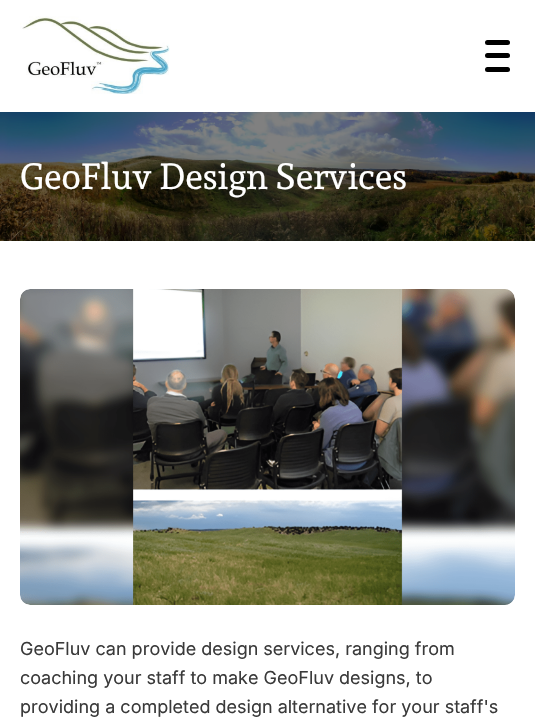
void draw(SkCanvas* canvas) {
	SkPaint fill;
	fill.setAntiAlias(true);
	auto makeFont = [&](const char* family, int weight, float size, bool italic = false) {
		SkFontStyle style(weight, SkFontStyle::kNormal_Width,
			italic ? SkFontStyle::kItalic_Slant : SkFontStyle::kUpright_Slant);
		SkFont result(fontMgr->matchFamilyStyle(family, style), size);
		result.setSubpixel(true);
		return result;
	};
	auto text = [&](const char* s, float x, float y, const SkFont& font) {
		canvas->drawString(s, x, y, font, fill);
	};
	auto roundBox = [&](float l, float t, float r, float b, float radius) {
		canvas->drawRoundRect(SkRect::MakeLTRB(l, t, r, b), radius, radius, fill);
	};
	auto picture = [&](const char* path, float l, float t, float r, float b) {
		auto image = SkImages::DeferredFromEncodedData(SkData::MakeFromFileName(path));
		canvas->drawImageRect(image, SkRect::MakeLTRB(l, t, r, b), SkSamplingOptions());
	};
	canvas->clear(0xFFFFFFFF);
	picture("image0.png", 20, 16, 170, 94);
	fill.setColor(0xFF000000);
	roundBox(485, 53, 510, 58, 2.5f);
	roundBox(485, 40, 510, 45, 2.5f);
	roundBox(485, 67, 510, 72, 2.5f);
	picture("image1.png", 0, 112, 535, 241);
	picture("image2.png", 20, 289, 515, 605);
	auto font1 = makeFont("Sura", 400, 36);
	fill.setColor(0xFFFFFFFF);
	text("GeoFluv Design Services", 20, 189, font1);
	auto font2 = makeFont("Inter", 400, 18);
	fill.setColor(0xFF3A3A3A);
	text("GeoFluv can provide design services, ranging from", 20, 655, font2);
	text("coaching your staff to make GeoFluv designs, to", 20, 684, font2);
	text("providing a completed design alternative for your staff's", 20, 713, font2);
}
